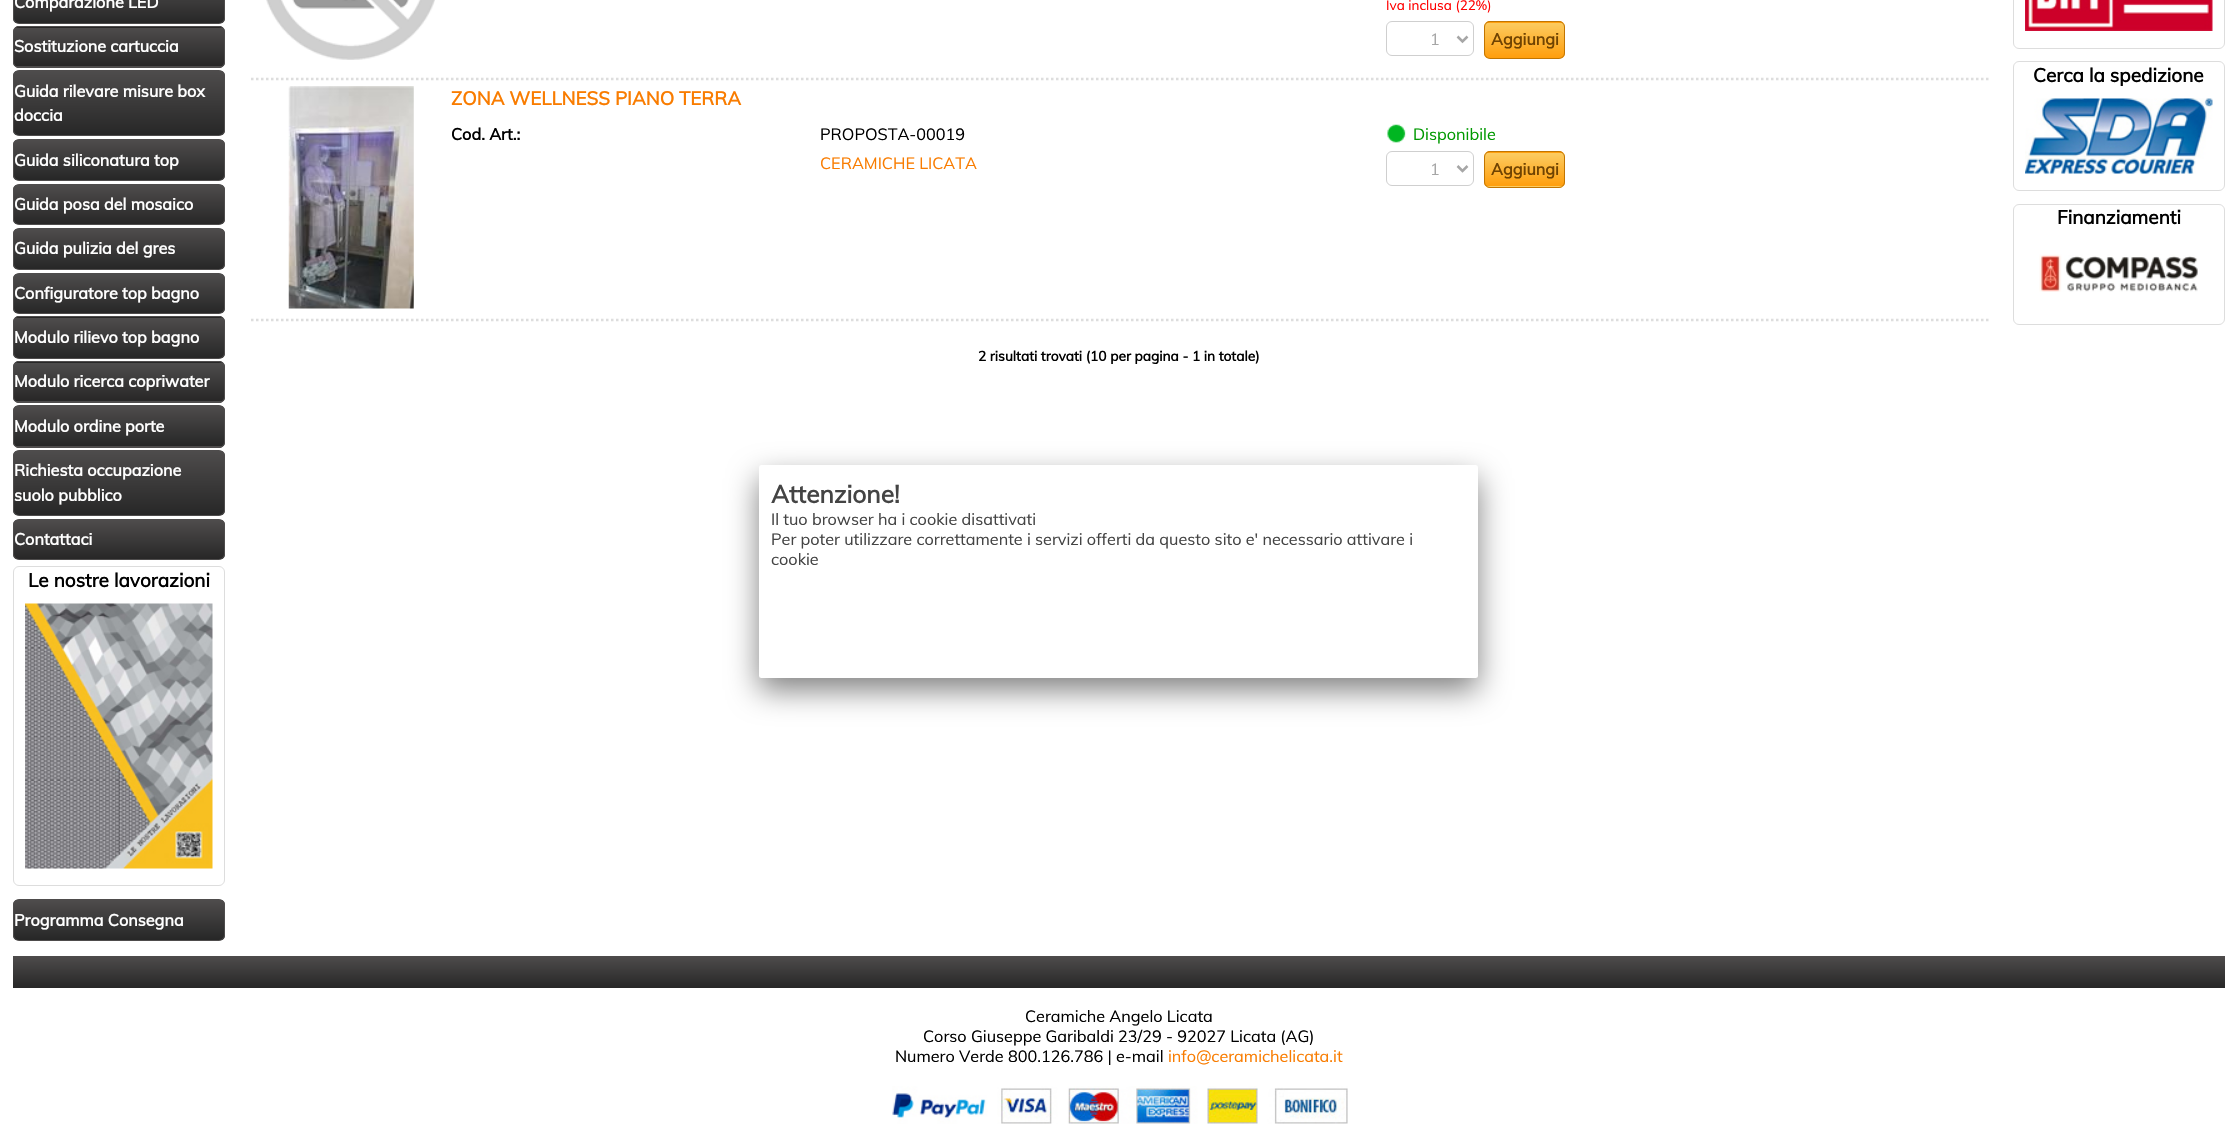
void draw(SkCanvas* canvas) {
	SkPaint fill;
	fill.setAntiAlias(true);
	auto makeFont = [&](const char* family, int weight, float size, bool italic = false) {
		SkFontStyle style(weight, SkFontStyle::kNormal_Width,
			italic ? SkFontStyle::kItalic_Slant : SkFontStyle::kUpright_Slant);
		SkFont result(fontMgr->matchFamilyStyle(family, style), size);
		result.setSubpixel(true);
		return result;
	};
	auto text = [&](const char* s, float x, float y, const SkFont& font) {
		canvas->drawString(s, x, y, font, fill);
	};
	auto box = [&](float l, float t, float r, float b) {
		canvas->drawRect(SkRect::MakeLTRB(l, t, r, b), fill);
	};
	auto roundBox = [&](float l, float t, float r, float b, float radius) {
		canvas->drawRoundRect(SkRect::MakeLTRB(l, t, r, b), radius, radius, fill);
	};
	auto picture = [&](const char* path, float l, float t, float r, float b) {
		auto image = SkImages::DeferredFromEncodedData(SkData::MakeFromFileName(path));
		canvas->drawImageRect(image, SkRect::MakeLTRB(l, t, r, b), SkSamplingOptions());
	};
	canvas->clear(0xFFFFFFFF);
	canvas->save();
	canvas->clipPath(SkPathBuilder().moveTo(19, -19).lineTo(219, -19).cubicTo(222.5f, -19, 225, -16.5f, 225, -13).lineTo(225, 18).cubicTo(225, 21.5f, 222.5f, 24, 219, 24).lineTo(19, 24).cubicTo(15.5f, 24, 13, 21.5f, 13, 18).lineTo(13, -13).cubicTo(13, -16.5f, 15.5f, -19, 19, -19).close().detach(), true);
	{
		const SkColor colors[] = {0xFF4E4C4C, 0xFF272727};
		const float stops[] = {0, 1};
		const SkPoint ends[] = {{119, -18}, {119, 23}};
		fill.setShader(SkGradientShader::MakeLinear(ends, colors, stops, 2, SkTileMode::kClamp));
		fill.setAlpha(255);
	}
	box(13, 0, 225, 23);
	canvas->restore();
	fill.setStyle(SkPaint::kStroke_Style);
	fill.setStrokeWidth(1);
	fill.setShader(nullptr);
	fill.setColor(0xFF4E4C4C);
	canvas->drawRoundRect(SkRect::MakeLTRB(13.5f, -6.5f, 224.5f, 23.5f), 5.5f, 5.5f, fill);
	canvas->save();
	canvas->clipPath(SkPathBuilder().moveTo(19, 26).lineTo(219, 26).cubicTo(222.5f, 26, 225, 28.5f, 225, 32).lineTo(225, 62).cubicTo(225, 65.5f, 222.5f, 68, 219, 68).lineTo(19, 68).cubicTo(15.5f, 68, 13, 65.5f, 13, 62).lineTo(13, 32).cubicTo(13, 28.5f, 15.5f, 26, 19, 26).close().detach(), true);
	fill.setStyle(SkPaint::kFill_Style);
	{
		const SkColor colors[] = {0xFF4E4C4C, 0xFF272727};
		const float stops[] = {0, 1};
		const SkPoint ends[] = {{119, -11}, {119, 28}};
		fill.setShader(SkGradientShader::MakeLinear(ends, colors, stops, 2, SkTileMode::kClamp));
		fill.setAlpha(255);
	}
	box(13, 26, 225, 28);
	{
		const SkColor colors[] = {0xFF4E4C4C, 0xFF272727};
		const float stops[] = {0, 1};
		const SkPoint ends[] = {{119, 27}, {119, 66}};
		fill.setShader(SkGradientShader::MakeLinear(ends, colors, stops, 2, SkTileMode::kClamp));
		fill.setAlpha(255);
	}
	box(13, 28, 225, 66);
	{
		const SkColor colors[] = {0xFF4E4C4C, 0xFF272727};
		const float stops[] = {0, 1};
		const SkPoint ends[] = {{119, 66}, {119, 105}};
		fill.setShader(SkGradientShader::MakeLinear(ends, colors, stops, 2, SkTileMode::kClamp));
		fill.setAlpha(255);
	}
	box(13, 66, 225, 68);
	canvas->restore();
	fill.setStyle(SkPaint::kStroke_Style);
	fill.setShader(nullptr);
	fill.setColor(0xFF4E4C4C);
	canvas->drawRoundRect(SkRect::MakeLTRB(13.5f, 26.5f, 224.5f, 67.5f), 5.5f, 5.5f, fill);
	canvas->save();
	canvas->clipPath(SkPathBuilder().moveTo(19, 70).lineTo(219, 70).cubicTo(222.5f, 70, 225, 72.5f, 225, 76).lineTo(225, 130).cubicTo(225, 133.5f, 222.5f, 136, 219, 136).lineTo(19, 136).cubicTo(15.5f, 136, 13, 133.5f, 13, 130).lineTo(13, 76).cubicTo(13, 72.5f, 15.5f, 70, 19, 70).close().detach(), true);
	fill.setStyle(SkPaint::kFill_Style);
	{
		const SkColor colors[] = {0xFF4E4C4C, 0xFF272727};
		const float stops[] = {0, 1};
		const SkPoint ends[] = {{119, 71}, {119, 135}};
		fill.setShader(SkGradientShader::MakeLinear(ends, colors, stops, 2, SkTileMode::kClamp));
		fill.setAlpha(255);
	}
	box(13, 71, 225, 135);
	canvas->restore();
	fill.setStyle(SkPaint::kStroke_Style);
	fill.setShader(nullptr);
	fill.setColor(0xFF4E4C4C);
	canvas->drawRoundRect(SkRect::MakeLTRB(13.5f, 70.5f, 224.5f, 135.5f), 5.5f, 5.5f, fill);
	canvas->save();
	canvas->clipPath(SkPathBuilder().moveTo(19, 139).lineTo(219, 139).cubicTo(222.5f, 139, 225, 141.5f, 225, 145).lineTo(225, 175).cubicTo(225, 178.5f, 222.5f, 181, 219, 181).lineTo(19, 181).cubicTo(15.5f, 181, 13, 178.5f, 13, 175).lineTo(13, 145).cubicTo(13, 141.5f, 15.5f, 139, 19, 139).close().detach(), true);
	fill.setStyle(SkPaint::kFill_Style);
	{
		const SkColor colors[] = {0xFF4E4C4C, 0xFF272727};
		const float stops[] = {0, 1};
		const SkPoint ends[] = {{119, 140}, {119, 180}};
		fill.setShader(SkGradientShader::MakeLinear(ends, colors, stops, 2, SkTileMode::kClamp));
		fill.setAlpha(255);
	}
	box(13, 140, 225, 180);
	canvas->restore();
	fill.setStyle(SkPaint::kStroke_Style);
	fill.setShader(nullptr);
	fill.setColor(0xFF4E4C4C);
	canvas->drawRoundRect(SkRect::MakeLTRB(13.5f, 139.5f, 224.5f, 180.5f), 5.5f, 5.5f, fill);
	canvas->save();
	canvas->clipPath(SkPathBuilder().moveTo(19, 184).lineTo(219, 184).cubicTo(222.5f, 184, 225, 186.5f, 225, 190).lineTo(225, 219).cubicTo(225, 222.5f, 222.5f, 225, 219, 225).lineTo(19, 225).cubicTo(15.5f, 225, 13, 222.5f, 13, 219).lineTo(13, 190).cubicTo(13, 186.5f, 15.5f, 184, 19, 184).close().detach(), true);
	fill.setStyle(SkPaint::kFill_Style);
	{
		const SkColor colors[] = {0xFF4E4C4C, 0xFF272727};
		const float stops[] = {0, 1};
		const SkPoint ends[] = {{119, 185}, {119, 224}};
		fill.setShader(SkGradientShader::MakeLinear(ends, colors, stops, 2, SkTileMode::kClamp));
		fill.setAlpha(255);
	}
	box(13, 185, 225, 224);
	canvas->restore();
	fill.setStyle(SkPaint::kStroke_Style);
	fill.setShader(nullptr);
	fill.setColor(0xFF4E4C4C);
	canvas->drawRoundRect(SkRect::MakeLTRB(13.5f, 184.5f, 224.5f, 224.5f), 5.5f, 5.5f, fill);
	canvas->save();
	canvas->clipPath(SkPathBuilder().moveTo(19, 228).lineTo(219, 228).cubicTo(222.5f, 228, 225, 230.5f, 225, 234).lineTo(225, 264).cubicTo(225, 267.5f, 222.5f, 270, 219, 270).lineTo(19, 270).cubicTo(15.5f, 270, 13, 267.5f, 13, 264).lineTo(13, 234).cubicTo(13, 230.5f, 15.5f, 228, 19, 228).close().detach(), true);
	fill.setStyle(SkPaint::kFill_Style);
	{
		const SkColor colors[] = {0xFF4E4C4C, 0xFF272727};
		const float stops[] = {0, 1};
		const SkPoint ends[] = {{119, 229}, {119, 269}};
		fill.setShader(SkGradientShader::MakeLinear(ends, colors, stops, 2, SkTileMode::kClamp));
		fill.setAlpha(255);
	}
	box(13, 229, 225, 269);
	canvas->restore();
	fill.setStyle(SkPaint::kStroke_Style);
	fill.setShader(nullptr);
	fill.setColor(0xFF4E4C4C);
	canvas->drawRoundRect(SkRect::MakeLTRB(13.5f, 228.5f, 224.5f, 269.5f), 5.5f, 5.5f, fill);
	canvas->save();
	canvas->clipPath(SkPathBuilder().moveTo(19, 273).lineTo(219, 273).cubicTo(222.5f, 273, 225, 275.5f, 225, 279).lineTo(225, 308).cubicTo(225, 311.5f, 222.5f, 314, 219, 314).lineTo(19, 314).cubicTo(15.5f, 314, 13, 311.5f, 13, 308).lineTo(13, 279).cubicTo(13, 275.5f, 15.5f, 273, 19, 273).close().detach(), true);
	fill.setStyle(SkPaint::kFill_Style);
	{
		const SkColor colors[] = {0xFF4E4C4C, 0xFF272727};
		const float stops[] = {0, 1};
		const SkPoint ends[] = {{119, 274}, {119, 313}};
		fill.setShader(SkGradientShader::MakeLinear(ends, colors, stops, 2, SkTileMode::kClamp));
		fill.setAlpha(255);
	}
	box(13, 274, 225, 313);
	canvas->restore();
	fill.setStyle(SkPaint::kStroke_Style);
	fill.setShader(nullptr);
	fill.setColor(0xFF4E4C4C);
	canvas->drawRoundRect(SkRect::MakeLTRB(13.5f, 273.5f, 224.5f, 313.5f), 5.5f, 5.5f, fill);
	canvas->save();
	canvas->clipPath(SkPathBuilder().moveTo(19, 316).lineTo(219, 316).cubicTo(222.5f, 316, 225, 318.5f, 225, 322).lineTo(225, 353).cubicTo(225, 356.5f, 222.5f, 359, 219, 359).lineTo(19, 359).cubicTo(15.5f, 359, 13, 356.5f, 13, 353).lineTo(13, 322).cubicTo(13, 318.5f, 15.5f, 316, 19, 316).close().detach(), true);
	fill.setStyle(SkPaint::kFill_Style);
	{
		const SkColor colors[] = {0xFF4E4C4C, 0xFF272727};
		const float stops[] = {0, 1};
		const SkPoint ends[] = {{119, 278}, {119, 318}};
		fill.setShader(SkGradientShader::MakeLinear(ends, colors, stops, 2, SkTileMode::kClamp));
		fill.setAlpha(255);
	}
	box(13, 316, 225, 318);
	{
		const SkColor colors[] = {0xFF4E4C4C, 0xFF272727};
		const float stops[] = {0, 1};
		const SkPoint ends[] = {{119, 318}, {119, 358}};
		fill.setShader(SkGradientShader::MakeLinear(ends, colors, stops, 2, SkTileMode::kClamp));
		fill.setAlpha(255);
	}
	box(13, 318, 225, 358);
	canvas->restore();
	fill.setStyle(SkPaint::kStroke_Style);
	fill.setShader(nullptr);
	fill.setColor(0xFF4E4C4C);
	canvas->drawRoundRect(SkRect::MakeLTRB(13.5f, 316.5f, 224.5f, 358.5f), 5.5f, 5.5f, fill);
	canvas->save();
	canvas->clipPath(SkPathBuilder().moveTo(19, 361).lineTo(219, 361).cubicTo(222.5f, 361, 225, 363.5f, 225, 367).lineTo(225, 397).cubicTo(225, 400.5f, 222.5f, 403, 219, 403).lineTo(19, 403).cubicTo(15.5f, 403, 13, 400.5f, 13, 397).lineTo(13, 367).cubicTo(13, 363.5f, 15.5f, 361, 19, 361).close().detach(), true);
	fill.setStyle(SkPaint::kFill_Style);
	{
		const SkColor colors[] = {0xFF4E4C4C, 0xFF272727};
		const float stops[] = {0, 1};
		const SkPoint ends[] = {{119, 324}, {119, 363}};
		fill.setShader(SkGradientShader::MakeLinear(ends, colors, stops, 2, SkTileMode::kClamp));
		fill.setAlpha(255);
	}
	box(13, 361, 225, 363);
	{
		const SkColor colors[] = {0xFF4E4C4C, 0xFF272727};
		const float stops[] = {0, 1};
		const SkPoint ends[] = {{119, 363}, {119, 401}};
		fill.setShader(SkGradientShader::MakeLinear(ends, colors, stops, 2, SkTileMode::kClamp));
		fill.setAlpha(255);
	}
	box(13, 363, 225, 401);
	{
		const SkColor colors[] = {0xFF4E4C4C, 0xFF272727};
		const float stops[] = {0, 1};
		const SkPoint ends[] = {{119, 401}, {119, 440}};
		fill.setShader(SkGradientShader::MakeLinear(ends, colors, stops, 2, SkTileMode::kClamp));
		fill.setAlpha(255);
	}
	box(13, 401, 225, 403);
	canvas->restore();
	fill.setStyle(SkPaint::kStroke_Style);
	fill.setShader(nullptr);
	fill.setColor(0xFF4E4C4C);
	canvas->drawRoundRect(SkRect::MakeLTRB(13.5f, 361.5f, 224.5f, 402.5f), 5.5f, 5.5f, fill);
	canvas->save();
	canvas->clipPath(SkPathBuilder().moveTo(19, 405).lineTo(219, 405).cubicTo(222.5f, 405, 225, 407.5f, 225, 411).lineTo(225, 442).cubicTo(225, 445.5f, 222.5f, 448, 219, 448).lineTo(19, 448).cubicTo(15.5f, 448, 13, 445.5f, 13, 442).lineTo(13, 411).cubicTo(13, 407.5f, 15.5f, 405, 19, 405).close().detach(), true);
	fill.setStyle(SkPaint::kFill_Style);
	{
		const SkColor colors[] = {0xFF4E4C4C, 0xFF272727};
		const float stops[] = {0, 1};
		const SkPoint ends[] = {{119, 406}, {119, 446}};
		fill.setShader(SkGradientShader::MakeLinear(ends, colors, stops, 2, SkTileMode::kClamp));
		fill.setAlpha(255);
	}
	box(13, 406, 225, 446);
	{
		const SkColor colors[] = {0xFF4E4C4C, 0xFF272727};
		const float stops[] = {0, 1};
		const SkPoint ends[] = {{119, 446}, {119, 486}};
		fill.setShader(SkGradientShader::MakeLinear(ends, colors, stops, 2, SkTileMode::kClamp));
		fill.setAlpha(255);
	}
	box(13, 446, 225, 448);
	canvas->restore();
	fill.setStyle(SkPaint::kStroke_Style);
	fill.setShader(nullptr);
	fill.setColor(0xFF4E4C4C);
	canvas->drawRoundRect(SkRect::MakeLTRB(13.5f, 405.5f, 224.5f, 447.5f), 5.5f, 5.5f, fill);
	canvas->save();
	canvas->clipPath(SkPathBuilder().moveTo(19, 450).lineTo(219, 450).cubicTo(222.5f, 450, 225, 452.5f, 225, 456).lineTo(225, 510).cubicTo(225, 513.5f, 222.5f, 516, 219, 516).lineTo(19, 516).cubicTo(15.5f, 516, 13, 513.5f, 13, 510).lineTo(13, 456).cubicTo(13, 452.5f, 15.5f, 450, 19, 450).close().detach(), true);
	fill.setStyle(SkPaint::kFill_Style);
	{
		const SkColor colors[] = {0xFF4E4C4C, 0xFF272727};
		const float stops[] = {0, 1};
		const SkPoint ends[] = {{119, 451}, {119, 515}};
		fill.setShader(SkGradientShader::MakeLinear(ends, colors, stops, 2, SkTileMode::kClamp));
		fill.setAlpha(255);
	}
	box(13, 451, 225, 515);
	canvas->restore();
	fill.setStyle(SkPaint::kStroke_Style);
	fill.setShader(nullptr);
	fill.setColor(0xFF4E4C4C);
	canvas->drawRoundRect(SkRect::MakeLTRB(13.5f, 450.5f, 224.5f, 515.5f), 5.5f, 5.5f, fill);
	canvas->save();
	canvas->clipPath(SkPathBuilder().moveTo(19, 519).lineTo(219, 519).cubicTo(222.5f, 519, 225, 521.5f, 225, 525).lineTo(225, 554).cubicTo(225, 557.5f, 222.5f, 560, 219, 560).lineTo(19, 560).cubicTo(15.5f, 560, 13, 557.5f, 13, 554).lineTo(13, 525).cubicTo(13, 521.5f, 15.5f, 519, 19, 519).close().detach(), true);
	fill.setStyle(SkPaint::kFill_Style);
	{
		const SkColor colors[] = {0xFF4E4C4C, 0xFF272727};
		const float stops[] = {0, 1};
		const SkPoint ends[] = {{119, 520}, {119, 559}};
		fill.setShader(SkGradientShader::MakeLinear(ends, colors, stops, 2, SkTileMode::kClamp));
		fill.setAlpha(255);
	}
	box(13, 520, 225, 559);
	canvas->restore();
	fill.setStyle(SkPaint::kStroke_Style);
	fill.setShader(nullptr);
	fill.setColor(0xFF4E4C4C);
	canvas->drawRoundRect(SkRect::MakeLTRB(13.5f, 519.5f, 224.5f, 559.5f), 5.5f, 5.5f, fill);
	fill.setColor(0xFFDDDDDD);
	canvas->drawRoundRect(SkRect::MakeLTRB(13.5f, 566.5f, 224.5f, 885.5f), 5.5f, 5.5f, fill);
	picture("image0.png", 25, 603, 213, 869);
	canvas->save();
	canvas->clipPath(SkPathBuilder().moveTo(19, 899).lineTo(219, 899).cubicTo(222.5f, 899, 225, 901.5f, 225, 905).lineTo(225, 935).cubicTo(225, 938.5f, 222.5f, 941, 219, 941).lineTo(19, 941).cubicTo(15.5f, 941, 13, 938.5f, 13, 935).lineTo(13, 905).cubicTo(13, 901.5f, 15.5f, 899, 19, 899).close().detach(), true);
	fill.setStyle(SkPaint::kFill_Style);
	{
		const SkColor colors[] = {0xFF4E4C4C, 0xFF272727};
		const float stops[] = {0, 1};
		const SkPoint ends[] = {{119, 900}, {119, 940}};
		fill.setShader(SkGradientShader::MakeLinear(ends, colors, stops, 2, SkTileMode::kClamp));
		fill.setAlpha(255);
	}
	box(13, 900, 225, 940);
	canvas->restore();
	fill.setStyle(SkPaint::kStroke_Style);
	fill.setShader(nullptr);
	fill.setColor(0xFF4E4C4C);
	canvas->drawRoundRect(SkRect::MakeLTRB(13.5f, 899.5f, 224.5f, 940.5f), 5.5f, 5.5f, fill);
	fill.setStrokeWidth(2.5f);
	fill.setColor(0xFFDDDDDD);
	fill.setPathEffect(SkDashPathEffect::Make({{2.5f, 2.5f}}, 0));
	canvas->drawPath(SkPathBuilder().moveTo(251, 79).lineTo(1989, 79).detach(), fill);
	fill.setPathEffect(nullptr);
	picture("image1.png", 266, 0, 435, 60);
	fill.setStrokeWidth(1);
	fill.setColor(0xFFCFCFCF);
	canvas->drawRoundRect(SkRect::MakeLTRB(1386.5f, 21.5f, 1473.5f, 55.5f), 5.5f, 5.5f, fill);
	fill.setStrokeWidth(2.5f);
	fill.setColor(0xFFA6A6A6);
	canvas->drawPath(SkPathBuilder().moveTo(1457.5f, 36.5f).lineTo(1462.5f, 41.5f).lineTo(1467.5f, 36.5f).detach(), fill);
	canvas->save();
	canvas->clipPath(SkPathBuilder().moveTo(1490, 21).lineTo(1559, 21).cubicTo(1562.5f, 21, 1565, 23.5f, 1565, 27).lineTo(1565, 53).cubicTo(1565, 56.5f, 1562.5f, 59, 1559, 59).lineTo(1490, 59).cubicTo(1486.5f, 59, 1484, 56.5f, 1484, 53).lineTo(1484, 27).cubicTo(1484, 23.5f, 1486.5f, 21, 1490, 21).close().detach(), true);
	fill.setStyle(SkPaint::kFill_Style);
	{
		const SkColor colors[] = {0xFFFCCC62, 0xFFFF9E0D};
		const float stops[] = {0, 1};
		const SkPoint ends[] = {{1524, -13}, {1524, 23}};
		fill.setShader(SkGradientShader::MakeLinear(ends, colors, stops, 2, SkTileMode::kClamp));
		fill.setAlpha(255);
	}
	box(1484, 21, 1565, 23);
	{
		const SkColor colors[] = {0xFFFCCC62, 0xFFFF9E0D};
		const float stops[] = {0, 1};
		const SkPoint ends[] = {{1524, 22}, {1524, 58}};
		fill.setShader(SkGradientShader::MakeLinear(ends, colors, stops, 2, SkTileMode::kClamp));
		fill.setAlpha(255);
	}
	box(1484, 23, 1565, 58);
	canvas->restore();
	fill.setStyle(SkPaint::kStroke_Style);
	fill.setStrokeWidth(1);
	fill.setShader(nullptr);
	fill.setColor(0xFFC27501);
	canvas->drawRoundRect(SkRect::MakeLTRB(1484.5f, 21.5f, 1564.5f, 58.5f), 5.5f, 5.5f, fill);
	fill.setStrokeWidth(2.5f);
	fill.setColor(0xFFDDDDDD);
	fill.setPathEffect(SkDashPathEffect::Make({{2.5f, 2.5f}}, 0));
	canvas->drawPath(SkPathBuilder().moveTo(251, 320).lineTo(1989, 320).detach(), fill);
	fill.setPathEffect(nullptr);
	picture("image2.png", 288, 86, 414, 309);
	picture("image3.png", 1387, 124, 1406, 143);
	fill.setStrokeWidth(1);
	fill.setColor(0xFFCFCFCF);
	canvas->drawRoundRect(SkRect::MakeLTRB(1386.5f, 151.5f, 1473.5f, 185.5f), 5.5f, 5.5f, fill);
	fill.setStrokeWidth(2.5f);
	fill.setColor(0xFFA6A6A6);
	canvas->drawPath(SkPathBuilder().moveTo(1457.5f, 166).lineTo(1462.5f, 171).lineTo(1467.5f, 166).detach(), fill);
	canvas->save();
	canvas->clipPath(SkPathBuilder().moveTo(1490, 151).lineTo(1559, 151).cubicTo(1562.5f, 151, 1565, 153.5f, 1565, 157).lineTo(1565, 182).cubicTo(1565, 185.5f, 1562.5f, 188, 1559, 188).lineTo(1490, 188).cubicTo(1486.5f, 188, 1484, 185.5f, 1484, 182).lineTo(1484, 157).cubicTo(1484, 153.5f, 1486.5f, 151, 1490, 151).close().detach(), true);
	fill.setStyle(SkPaint::kFill_Style);
	{
		const SkColor colors[] = {0xFFFCCC62, 0xFFFF9E0D};
		const float stops[] = {0, 1};
		const SkPoint ends[] = {{1524, 119}, {1524, 153}};
		fill.setShader(SkGradientShader::MakeLinear(ends, colors, stops, 2, SkTileMode::kClamp));
		fill.setAlpha(255);
	}
	box(1484, 151, 1565, 153);
	{
		const SkColor colors[] = {0xFFFCCC62, 0xFFFF9E0D};
		const float stops[] = {0, 1};
		const SkPoint ends[] = {{1524, 153}, {1524, 186}};
		fill.setShader(SkGradientShader::MakeLinear(ends, colors, stops, 2, SkTileMode::kClamp));
		fill.setAlpha(255);
	}
	box(1484, 153, 1565, 186);
	{
		const SkColor colors[] = {0xFFFCCC62, 0xFFFF9E0D};
		const float stops[] = {0, 1};
		const SkPoint ends[] = {{1524, 186}, {1524, 220}};
		fill.setShader(SkGradientShader::MakeLinear(ends, colors, stops, 2, SkTileMode::kClamp));
		fill.setAlpha(255);
	}
	box(1484, 186, 1565, 188);
	canvas->restore();
	fill.setStyle(SkPaint::kStroke_Style);
	fill.setStrokeWidth(1);
	fill.setShader(nullptr);
	fill.setColor(0xFFC27501);
	canvas->drawRoundRect(SkRect::MakeLTRB(1484.5f, 151.5f, 1564.5f, 187.5f), 5.5f, 5.5f, fill);
	fill.setColor(0xFFDDDDDD);
	canvas->drawRoundRect(SkRect::MakeLTRB(2013.5f, -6.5f, 2224.5f, 48.5f), 5.5f, 5.5f, fill);
	picture("image4.png", 2025, 0, 2213, 31);
	canvas->drawRoundRect(SkRect::MakeLTRB(2013.5f, 61.5f, 2224.5f, 190.5f), 5.5f, 5.5f, fill);
	picture("image5.png", 2025, 98, 2213, 174);
	canvas->drawRoundRect(SkRect::MakeLTRB(2013.5f, 204.5f, 2224.5f, 324.5f), 5.5f, 5.5f, fill);
	picture("image6.png", 2039, 254, 2198, 292);
	fill.setStyle(SkPaint::kFill_Style);
	fill.setColor(0x80000000);
	fill.setMaskFilter(SkMaskFilter::MakeBlur(kNormal_SkBlurStyle, 15.5f));
	canvas->drawRoundRect(SkRect::MakeLTRB(759, 478, 1478, 690), 2.5f, 2.5f, fill);
	fill.setMaskFilter(nullptr);
	fill.setColor(0xFFFFFFFF);
	roundBox(759, 465, 1478, 678, 2.5f);
	{
		const SkColor colors[] = {0xFF4E4C4C, 0xFF272727};
		const float stops[] = {0, 1};
		const SkPoint ends[] = {{1119, 956}, {1119, 988}};
		fill.setShader(SkGradientShader::MakeLinear(ends, colors, stops, 2, SkTileMode::kClamp));
		fill.setAlpha(255);
	}
	box(13, 956, 2225, 988);
	picture("image7.png", 892, 1086, 1348, 1124);
	auto font1 = makeFont("Muli", 700, 16.25f);
	fill.setShader(nullptr);
	fill.setColor(0xFFFFFFFF);
	text("Comparazione LED", 14, 8, font1);
	text("Sostituzione cartuccia", 14, 52, font1);
	text("Guida rilevare misure box", 14, 97, font1);
	text("doccia", 14, 121, font1);
	text("Guida siliconatura top", 14, 166, font1);
	text("Guida posa del mosaico", 14, 210, font1);
	text("Guida pulizia del gres", 14, 254, font1);
	text("Configuratore top bagno", 14, 299, font1);
	text("Modulo rilievo top bagno", 14, 343, font1);
	text("Modulo ricerca copriwater", 14, 387, font1);
	text("Modulo ordine porte", 14, 432, font1);
	text("Richiesta occupazione", 14, 476, font1);
	text("suolo pubblico", 14, 501, font1);
	text("Contattaci", 14, 545, font1);
	auto font2 = makeFont("Muli", 700, 19);
	fill.setColor(0xFF000000);
	text("Le nostre lavorazioni", 28, 587, font2);
	fill.setColor(0xFFFFFFFF);
	text("Programma Consegna", 14, 926, font1);
	auto font3 = makeFont("Muli", 400, 13.5f);
	fill.setColor(0xFFFF0000);
	text("Iva inclusa (22%)", 1386, 10, font3);
	auto font4 = makeFont("Muli", 400, 16.25f);
	fill.setColor(0xFFA6A6A6);
	text("1", 1430, 45, font4);
	fill.setColor(0xFF704301);
	text("Aggiungi", 1491, 45, font1);
	auto font5 = makeFont("Muli", 700, 18.75f);
	fill.setColor(0xFFF97C00);
	text("ZONA WELLNESS PIANO TERRA", 451, 105, font5);
	fill.setColor(0xFF000000);
	text("Cod. Art.:", 451, 140, font1);
	text("PROPOSTA-00019", 820, 140, font4);
	fill.setColor(0xFFF97C00);
	text("CERAMICHE LICATA", 820, 169, font4);
	fill.setColor(0xFF009900);
	text("Disponibile", 1413, 140, font4);
	fill.setColor(0xFFA6A6A6);
	text("1", 1430, 175, font4);
	fill.setColor(0xFF704301);
	text("Aggiungi", 1491, 175, font1);
	auto font6 = makeFont("Muli", 700, 13.75f);
	fill.setColor(0xFF000000);
	text("2 risultati trovati (10 per pagina - 1 in totale)", 978, 361, font6);
	text("Cerca la spedizione", 2033, 82, font2);
	text("Finanziamenti", 2057, 224, font2);
	auto font7 = makeFont("Muli", 700, 24.5f);
	fill.setColor(0xFF444444);
	text("Attenzione!", 771, 503, font7);
	text("Il tuo browser ha i cookie disattivati", 771, 525, font4);
	text("Per poter utilizzare correttamente i servizi offerti da questo sito e' necessario attivare i", 771, 545, font4);
	text("cookie", 771, 565, font4);
	fill.setColor(0xFF000000);
	text("Ceramiche Angelo Licata", 1025, 1022, font4);
	text("Corso Giuseppe Garibaldi 23/29 - 92027 Licata (AG)", 923, 1042, font4);
	text("Numero Verde 800.126.786 | e-mail", 895, 1062, font4);
	fill.setColor(0xFFF97C00);
	text("info@ceramichelicata.it", 1168, 1062, font4);
}
